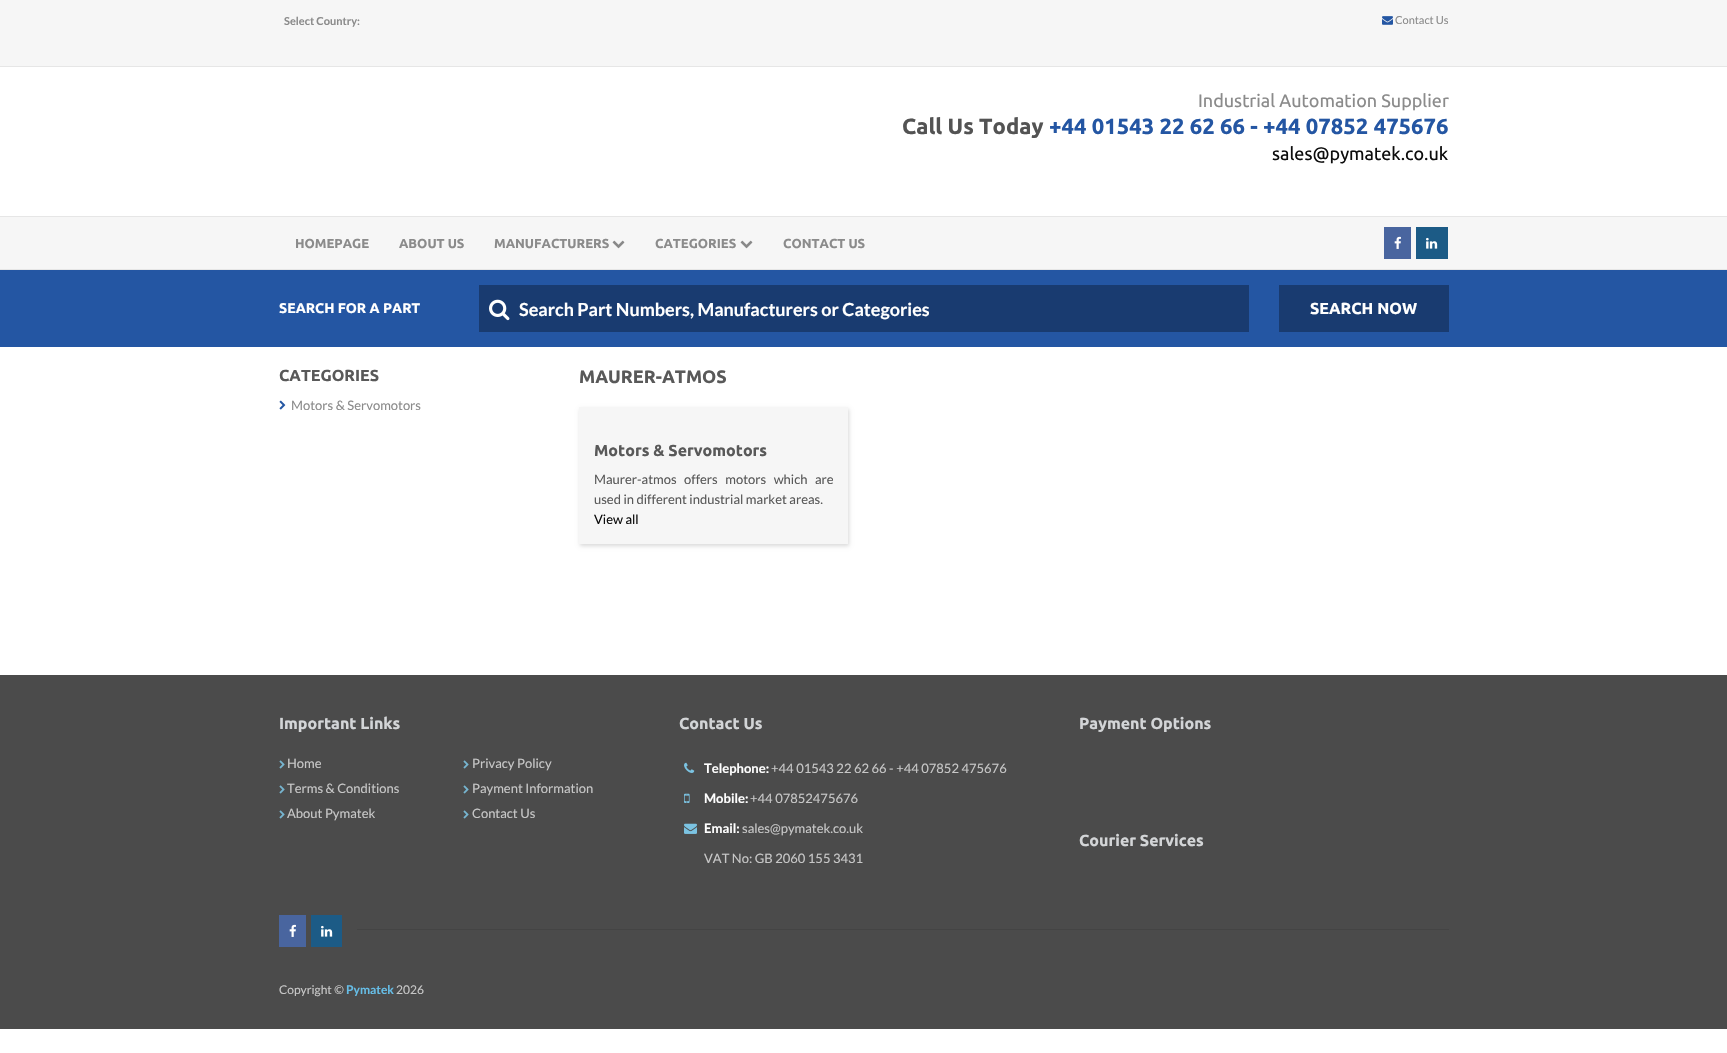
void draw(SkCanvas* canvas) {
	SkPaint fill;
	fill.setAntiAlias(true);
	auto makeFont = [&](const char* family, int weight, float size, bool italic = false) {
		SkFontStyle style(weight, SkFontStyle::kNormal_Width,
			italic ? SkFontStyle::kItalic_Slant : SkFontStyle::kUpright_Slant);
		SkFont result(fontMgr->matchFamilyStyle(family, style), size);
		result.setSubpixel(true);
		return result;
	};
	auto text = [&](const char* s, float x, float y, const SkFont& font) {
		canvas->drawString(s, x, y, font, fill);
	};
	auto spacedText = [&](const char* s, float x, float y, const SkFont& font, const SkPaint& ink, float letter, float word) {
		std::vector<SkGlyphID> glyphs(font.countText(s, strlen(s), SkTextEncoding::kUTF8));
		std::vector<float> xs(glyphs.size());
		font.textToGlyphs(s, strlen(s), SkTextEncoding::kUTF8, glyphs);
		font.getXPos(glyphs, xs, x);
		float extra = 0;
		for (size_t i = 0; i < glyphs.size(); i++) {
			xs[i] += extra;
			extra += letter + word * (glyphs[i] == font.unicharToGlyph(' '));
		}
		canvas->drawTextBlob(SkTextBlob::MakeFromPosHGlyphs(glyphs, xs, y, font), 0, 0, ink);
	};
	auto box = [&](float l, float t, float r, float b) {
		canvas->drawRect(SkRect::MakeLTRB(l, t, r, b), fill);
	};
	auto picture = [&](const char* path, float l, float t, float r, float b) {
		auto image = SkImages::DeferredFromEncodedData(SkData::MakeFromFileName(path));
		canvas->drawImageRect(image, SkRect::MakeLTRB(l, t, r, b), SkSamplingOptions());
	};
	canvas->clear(0xFFFFFFFF);
	fill.setColor(0xFFF6F6F6);
	box(0, 0, 1727, 66);
	fill.setColor(0xFFE6E6E6);
	box(0, 66, 1727, 67);
	picture("image0.png", 1382, 16, 1393, 25);
	fill.setColor(0xFFF6F6F6);
	box(0, 217, 1727, 269);
	fill.setColor(0xFFE6E6E6);
	box(0, 216, 1727, 217);
	box(0, 269, 1727, 270);
	picture("image1.png", 612, 240, 625, 249);
	picture("image1.png", 740, 240, 753, 249);
	fill.setColor(0xFF49659F);
	box(1384, 227, 1411, 259);
	picture("image2.png", 1394, 236, 1401, 249);
	fill.setColor(0xFF1C5B86);
	box(1416, 227, 1448, 259);
	picture("image3.png", 1426, 237, 1438, 249);
	fill.setColor(0xFF2456A3);
	box(0, 270, 1727, 347);
	fill.setColor(0xFF193B70);
	box(479, 285, 1249, 332);
	picture("image4.png", 489, 299, 510, 321);
	box(1279, 285, 1449, 332);
	picture("image5.png", 279, 400, 286, 410);
	fill.setColor(0x26000000);
	fill.setMaskFilter(SkMaskFilter::MakeBlur(kNormal_SkBlurStyle, 2));
	canvas->drawRect(SkRect::MakeLTRB(580, 409, 849, 546), fill);
	fill.setMaskFilter(nullptr);
	fill.setColor(0xFFF6F6F6);
	box(579, 407, 848, 544);
	fill.setColor(0xFF4B4B4B);
	box(0, 675, 1727, 1029);
	picture("image6.png", 279, 760, 285, 769);
	picture("image6.png", 463, 760, 469, 769);
	picture("image6.png", 279, 785, 285, 794);
	picture("image6.png", 463, 785, 469, 794);
	picture("image6.png", 279, 810, 285, 819);
	picture("image6.png", 463, 810, 469, 819);
	picture("image7.png", 684, 762, 695, 773);
	picture("image8.png", 684, 793, 690, 803);
	picture("image9.png", 684, 823, 697, 834);
	fill.setColor(0xFF444444);
	box(357, 929, 1449, 930);
	fill.setColor(0xFF49659F);
	box(279, 915, 306, 947);
	picture("image2.png", 289, 924, 296, 937);
	fill.setColor(0xFF1C5B86);
	box(311, 915, 342, 947);
	picture("image3.png", 321, 925, 333, 937);
	auto font1 = makeFont("Lato", 700, 11);
	fill.setColor(0xFF8B8B8B);
	text("Select Country:", 284, 25, font1);
	auto font2 = makeFont("Lato", 400, 11);
	text("Contact Us", 1395, 24, font2);
	auto font3 = makeFont("Ubuntu", 400, 18);
	text("Industrial Automation Supplier", 1198, 107, font3);
	auto font4 = makeFont("Ubuntu", 700, 22);
	fill.setColor(0xFF535353);
	text("Call Us Today", 902, 134, font4);
	fill.setColor(0xFF2456A3);
	text("+44 01543 22 62 66 - +44 07852 475676", 1049, 134, font4);
	fill.setColor(0xFF0D0D0D);
	text("sales@pymatek.co.uk", 1272, 160, font3);
	auto font5 = makeFont("Ubuntu", 700, 13);
	fill.setColor(0xFF8B8B8B);
	text("HOMEPAGE", 295, 248, font5);
	text("ABOUT US", 399, 248, font5);
	text("MANUFACTURERS", 494, 248, font5);
	text("CATEGORIES", 655, 248, font5);
	text("CONTACT US", 783, 248, font5);
	auto font6 = makeFont("Ubuntu", 700, 14);
	fill.setColor(0xFFFFFFFF);
	text("SEARCH FOR A PART", 279, 313, font6);
	auto font7 = makeFont("Lato", 700, 18);
	text("Search Part Numbers, Manufacturers or Categories", 519, 316, font7);
	auto font8 = makeFont("Ubuntu", 700, 16);
	text("SEARCH NOW", 1310, 314, font8);
	fill.setColor(0xFF595959);
	text("CATEGORIES", 279, 381, font8);
	auto font9 = makeFont("Lato", 400, 13);
	fill.setColor(0xFF8B8B8B);
	text("Motors & Servomotors", 291, 410, font9);
	auto font10 = makeFont("Ubuntu", 700, 18);
	fill.setColor(0xFF595959);
	text("MAURER-ATMOS", 579, 383, font10);
	text("Motors & Servomotors", 594, 456, font8);
	spacedText("Maurer-atmos offers motors which are", 594, 484, font9, fill, 0, 5);
	text("used in different industrial market areas.", 594, 504, font9);
	fill.setColor(0xFF0D0D0D);
	text("View all", 594, 524, font9);
	fill.setColor(0xFFD3D5D7);
	text("Important Links", 279, 729, font8);
	fill.setColor(0xFFC7C7C7);
	text("Home", 287, 768, font9);
	text("Privacy Policy", 472, 768, font9);
	text("Terms & Conditions", 287, 793, font9);
	text("Payment Information", 472, 793, font9);
	text("About Pymatek", 287, 818, font9);
	text("Contact Us", 472, 818, font9);
	fill.setColor(0xFFD3D5D7);
	text("Contact Us", 679, 729, font8);
	auto font11 = makeFont("Lato", 700, 13);
	fill.setColor(0xFFFFFFFF);
	text("Telephone:", 704, 773, font11);
	fill.setColor(0xFFC7C7C7);
	text("+44 01543 22 62 66 - +44 07852 475676", 771, 773, font9);
	fill.setColor(0xFFFFFFFF);
	text("Mobile:", 704, 803, font11);
	fill.setColor(0xFFC7C7C7);
	text("+44 07852475676", 750, 803, font9);
	fill.setColor(0xFFFFFFFF);
	text("Email:", 704, 833, font11);
	fill.setColor(0xFFC7C7C7);
	text("sales@pymatek.co.uk", 742, 833, font9);
	text("VAT No: GB 2060 155 3431", 704, 863, font9);
	fill.setColor(0xFFD3D5D7);
	text("Payment Options", 1079, 729, font8);
	text("Courier Services", 1079, 846, font8);
	auto font12 = makeFont("Lato", 400, 12);
	fill.setColor(0xFFC7C7C7);
	text("Copyright ©", 279, 994, font12);
	auto font13 = makeFont("Lato", 700, 12);
	fill.setColor(0xFF66BDE6);
	text("Pymatek", 346, 994, font13);
	fill.setColor(0xFFC7C7C7);
	text("2026", 396, 994, font12);
}
